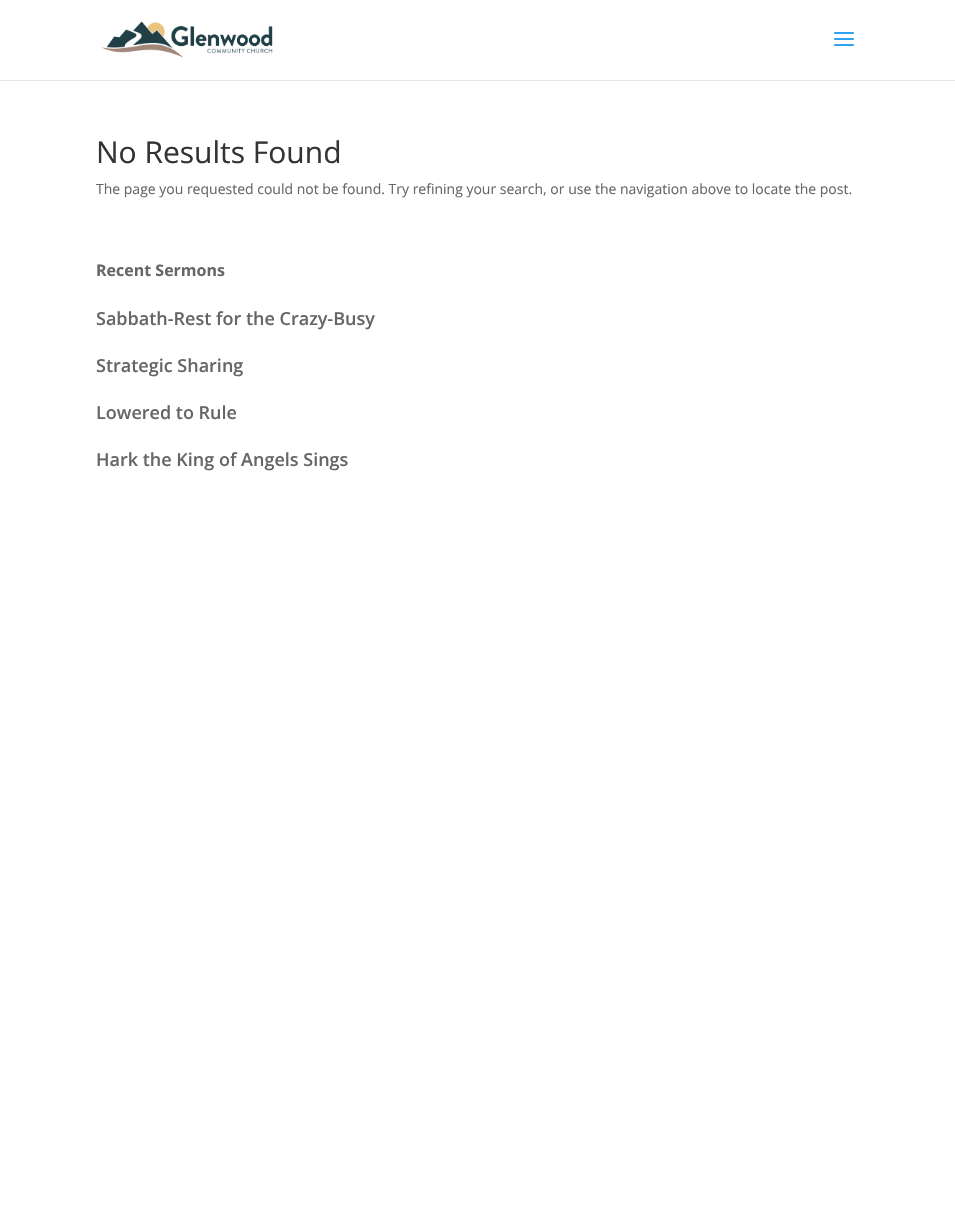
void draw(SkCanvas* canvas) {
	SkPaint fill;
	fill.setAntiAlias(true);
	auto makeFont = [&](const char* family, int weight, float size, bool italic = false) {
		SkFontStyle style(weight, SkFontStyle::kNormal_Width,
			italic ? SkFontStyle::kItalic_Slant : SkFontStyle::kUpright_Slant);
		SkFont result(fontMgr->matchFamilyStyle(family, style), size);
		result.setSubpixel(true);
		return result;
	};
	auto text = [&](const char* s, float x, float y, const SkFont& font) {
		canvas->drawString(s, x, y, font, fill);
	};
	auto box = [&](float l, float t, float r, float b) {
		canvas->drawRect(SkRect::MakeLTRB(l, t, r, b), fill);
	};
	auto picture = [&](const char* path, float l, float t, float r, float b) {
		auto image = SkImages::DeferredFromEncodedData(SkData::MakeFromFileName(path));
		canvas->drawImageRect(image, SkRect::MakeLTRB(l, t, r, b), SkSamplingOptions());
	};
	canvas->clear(0xFFFFFFFF);
	fill.setColor(0xFFE6E6E6);
	box(0, 80, 955, 81);
	picture("image0.png", 101, 21, 273, 58);
	picture("image1.png", 834, 32, 854, 46);
	auto font1 = makeFont("Open Sans", 400, 30);
	fill.setColor(0xFF333333);
	text("No Results Found", 96, 163, font1);
	auto font2 = makeFont("Open Sans", 400, 14);
	fill.setColor(0xFF666666);
	text("The page you requested could not be found. Try refining your search, or use the navigation above to locate the post.", 96, 194, font2);
	auto font3 = makeFont("Open Sans", 700, 16);
	text("Recent Sermons", 96, 276, font3);
	auto font4 = makeFont("Open Sans", 600, 18);
	text("Sabbath-Rest for the Crazy-Busy", 96, 325, font4);
	text("Strategic Sharing", 96, 372, font4);
	text("Lowered to Rule", 96, 419, font4);
	text("Hark the King of Angels Sings", 96, 466, font4);
}
